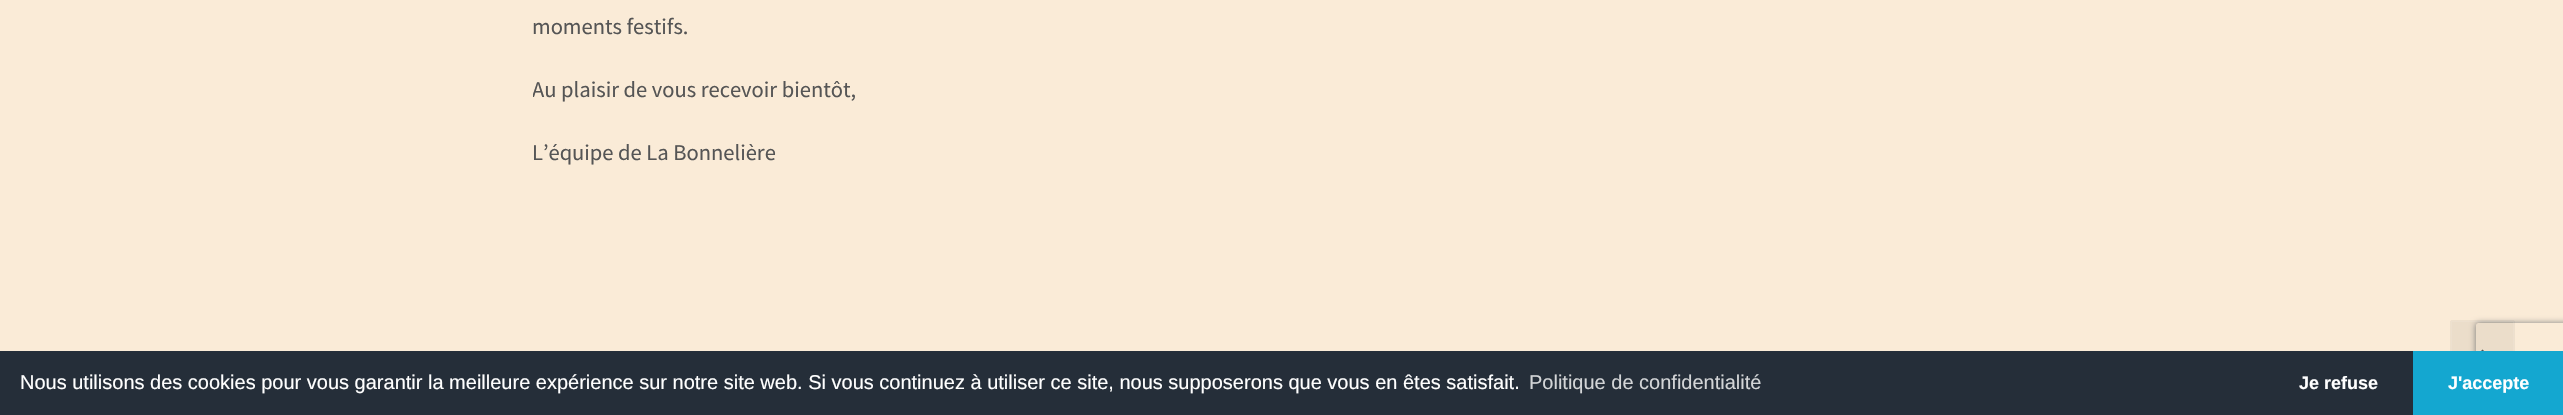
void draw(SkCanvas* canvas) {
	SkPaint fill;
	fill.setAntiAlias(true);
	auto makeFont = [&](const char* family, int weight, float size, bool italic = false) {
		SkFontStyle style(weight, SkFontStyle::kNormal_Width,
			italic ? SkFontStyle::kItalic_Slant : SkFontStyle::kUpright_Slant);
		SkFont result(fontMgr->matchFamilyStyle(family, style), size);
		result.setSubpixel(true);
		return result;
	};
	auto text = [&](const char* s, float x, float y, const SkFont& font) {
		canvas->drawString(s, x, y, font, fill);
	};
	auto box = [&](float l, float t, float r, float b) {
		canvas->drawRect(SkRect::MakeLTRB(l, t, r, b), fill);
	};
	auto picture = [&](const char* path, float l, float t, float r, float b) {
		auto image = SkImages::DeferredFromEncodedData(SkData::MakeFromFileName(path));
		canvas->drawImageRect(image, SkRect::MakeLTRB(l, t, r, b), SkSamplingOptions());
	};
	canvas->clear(0xFFFAEBD7);
	canvas->save();
	canvas->clipPath(SkPathBuilder(SkPathFillType::kEvenOdd).moveTo(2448, 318).lineTo(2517, 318).lineTo(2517, 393).lineTo(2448, 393).close().moveTo(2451, 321).lineTo(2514, 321).lineTo(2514, 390).lineTo(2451, 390).close().detach(), true);
	fill.setColor(0x47000000);
	fill.setMaskFilter(SkMaskFilter::MakeBlur(kNormal_SkBlurStyle, 0.5f));
	canvas->drawRect(SkRect::MakeLTRB(2451, 321, 2514, 390), fill);
	fill.setMaskFilter(nullptr);
	canvas->restore();
	canvas->save();
	canvas->clipPath(SkPathBuilder(SkPathFillType::kEvenOdd).moveTo(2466, 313).lineTo(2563, 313).lineTo(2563, 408).lineTo(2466, 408).close().moveTo(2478.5f, 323).lineTo(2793.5f, 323).cubicTo(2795, 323, 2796, 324, 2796, 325.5f).lineTo(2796, 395.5f).cubicTo(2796, 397, 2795, 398, 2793.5f, 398).lineTo(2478.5f, 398).cubicTo(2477, 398, 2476, 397, 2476, 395.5f).lineTo(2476, 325.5f).cubicTo(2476, 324, 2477, 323, 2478.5f, 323).close().detach(), true);
	fill.setColor(0xFF808080);
	fill.setMaskFilter(SkMaskFilter::MakeBlur(kNormal_SkBlurStyle, 3));
	canvas->drawRoundRect(SkRect::MakeLTRB(2476, 323, 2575, 398), 2.5f, 2.5f, fill);
	fill.setMaskFilter(nullptr);
	canvas->restore();
	fill.setColor(0x0F000000);
	box(2451, 321, 2514, 351);
	fill.setStyle(SkPaint::kStroke_Style);
	fill.setStrokeWidth(1);
	fill.setColor(0x1AFFFFFF);
	canvas->drawRect(SkRect::MakeLTRB(2451.5f, 321.5f, 2513.5f, 389.5f), fill);
	picture("image0.png", 2481, 349, 2484, 351);
	fill.setStyle(SkPaint::kFill_Style);
	fill.setColor(0xFF252E39);
	box(0, 351, 2413, 415);
	fill.setColor(0xFF14A7D0);
	box(2413, 351, 2563, 415);
	auto font1 = makeFont("Source Sans Pro", 400, 22.5f);
	fill.setColor(0xFF555555);
	text("moments festifs.", 532, 34, font1);
	canvas->save();
	canvas->clipRect(SkRect::MakeLTRB(533, 0, 2033, 259));
	text("Au plaisir de vous recevoir bientôt,", 532, 97, font1);
	canvas->restore();
	text("L’équipe de La Bonnelière", 532, 160, font1);
	auto font2 = makeFont("Liberation Sans", 400, 20);
	fill.setColor(0xFFFFFFFF);
	text("Nous utilisons des cookies pour vous garantir la meilleure expérience sur notre site web. Si vous continuez à utiliser ce site, nous supposerons que vous en êtes satisfait.", 20, 389, font2);
	fill.setColor(0xFFD3D5D7);
	text("Politique de confidentialité", 1529, 389, font2);
	auto font3 = makeFont("Liberation Sans", 700, 18);
	fill.setColor(0xFFFFFFFF);
	text("Je refuse", 2299, 389, font3);
	text("J'accepte", 2448, 389, font3);
}
